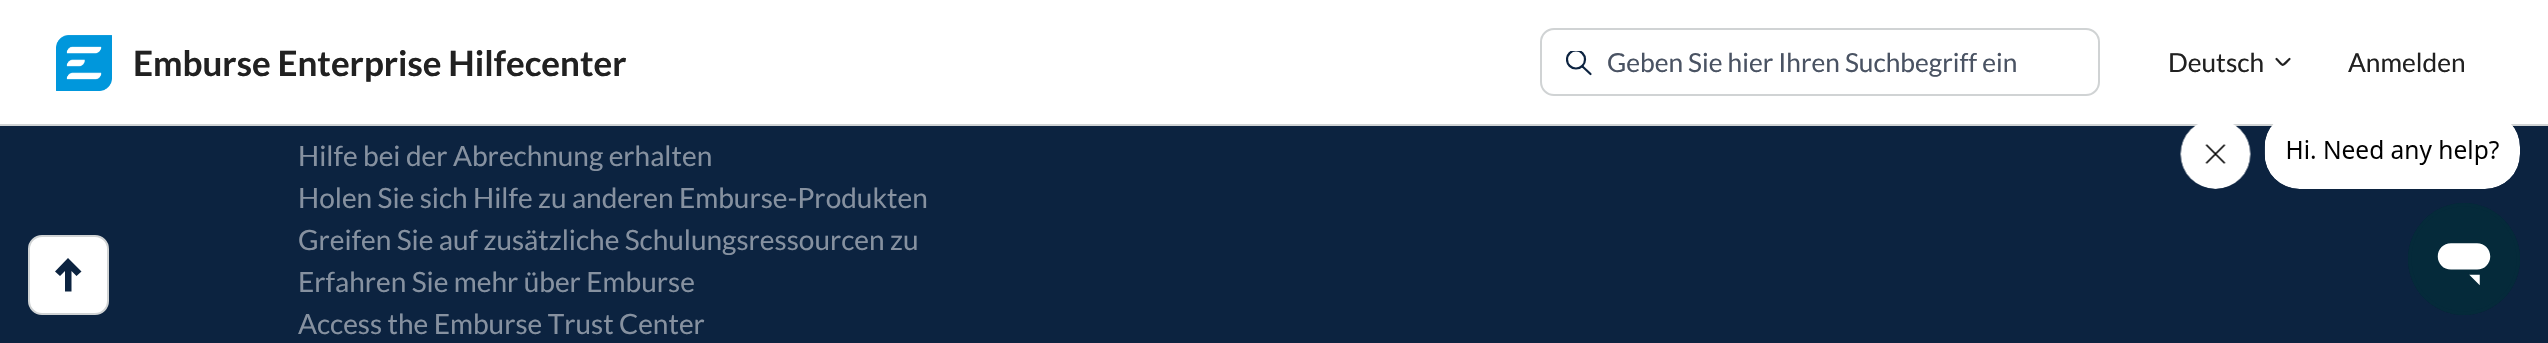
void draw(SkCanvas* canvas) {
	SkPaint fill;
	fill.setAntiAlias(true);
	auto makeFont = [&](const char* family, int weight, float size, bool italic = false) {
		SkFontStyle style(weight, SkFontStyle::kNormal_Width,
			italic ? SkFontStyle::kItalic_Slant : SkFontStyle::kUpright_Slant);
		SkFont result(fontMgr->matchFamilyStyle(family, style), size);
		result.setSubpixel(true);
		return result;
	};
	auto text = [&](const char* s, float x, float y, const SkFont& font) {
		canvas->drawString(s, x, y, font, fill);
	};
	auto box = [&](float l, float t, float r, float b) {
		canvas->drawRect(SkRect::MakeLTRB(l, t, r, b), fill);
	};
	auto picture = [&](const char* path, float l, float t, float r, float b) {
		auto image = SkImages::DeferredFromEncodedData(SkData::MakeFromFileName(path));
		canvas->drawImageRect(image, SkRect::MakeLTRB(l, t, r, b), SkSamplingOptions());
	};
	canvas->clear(0xFF0C2340);
	fill.setColor(0xFFFFFFFF);
	box(0, 0, 2548, 124);
	fill.setColor(0xFFD0D3D4);
	box(0, 124, 2548, 126);
	picture("image0.png", 56, 35, 112, 91);
	fill.setStyle(SkPaint::kStroke_Style);
	fill.setStrokeWidth(2);
	canvas->drawRoundRect(SkRect::MakeLTRB(1541, 29, 2099, 95), 13, 13, fill);
	canvas->save();
	canvas->clipRect(SkRect::MakeLTRB(1566, 51, 1593, 76));
	fill.setStrokeWidth(2.2f);
	fill.setColor(0xFF0C2340);
	canvas->drawCircle(1576, 59.5f, 9, fill);
	canvas->restore();
	fill.setStrokeCap(SkPaint::kRound_Cap);
	canvas->drawPath(SkPathBuilder().moveTo(1590.5f, 74).lineTo(1582.5f, 66.5f).detach(), fill);
	fill.setColor(0xFF212121);
	canvas->drawPath(SkPathBuilder().moveTo(2276.5f, 59).cubicTo(2284.5f, 67, 2281.5f, 66.5f, 2289.5f, 59).detach(), fill);
	fill.setStyle(SkPaint::kFill_Style);
	fill.setColor(0xFFFFFFFF);
	canvas->drawRoundRect(SkRect::MakeLTRB(29, 236, 108, 314), 13, 13, fill);
	fill.setStyle(SkPaint::kStroke_Style);
	fill.setStrokeWidth(2);
	fill.setStrokeCap(SkPaint::kButt_Cap);
	fill.setColor(0xFFD0D3D4);
	canvas->drawRoundRect(SkRect::MakeLTRB(29, 236, 108, 314), 13, 13, fill);
	fill.setStyle(SkPaint::kFill_Style);
	fill.setColor(0xFF0C2340);
	canvas->drawPath(SkPathBuilder().moveTo(55, 271.5f).lineTo(60, 276).lineTo(65, 271).lineTo(65, 291.5f).lineTo(71.5f, 291.5f).lineTo(71.5f, 271).lineTo(76.5f, 276).lineTo(81.5f, 271.5f).lineTo(68, 258).close().detach(), fill);
	picture("image1.png", 2180, 124, 2251, 189);
	picture("image2.png", 2264, 124, 2520, 189);
	picture("image3.png", 2408, 203, 2520, 315);
	auto font1 = makeFont("Lato", 700, 35);
	fill.setColor(0xFF212121);
	text("Emburse Enterprise Hilfecenter", 133, 76, font1);
	auto font2 = makeFont("Lato", 400, 26.25f);
	fill.setColor(0xFF4A5363);
	text("Geben Sie hier Ihren Suchbegriff ein", 1607, 72, font2);
	fill.setColor(0xFF212121);
	text("Deutsch", 2168, 72, font2);
	text("Anmelden", 2348, 72, font2);
	auto font3 = makeFont("Lato", 400, 28);
	fill.setColor(0xFF8691A0);
	text("Hilfe bei der Abrechnung erhalten", 298, 166, font3);
	text("Holen Sie sich Hilfe zu anderen Emburse-Produkten", 298, 208, font3);
	text("Greifen Sie auf zusätzliche Schulungsressourcen zu", 298, 250, font3);
	text("Erfahren Sie mehr über Emburse", 298, 292, font3);
	text("Access the Emburse Trust Center", 298, 334, font3);
}
